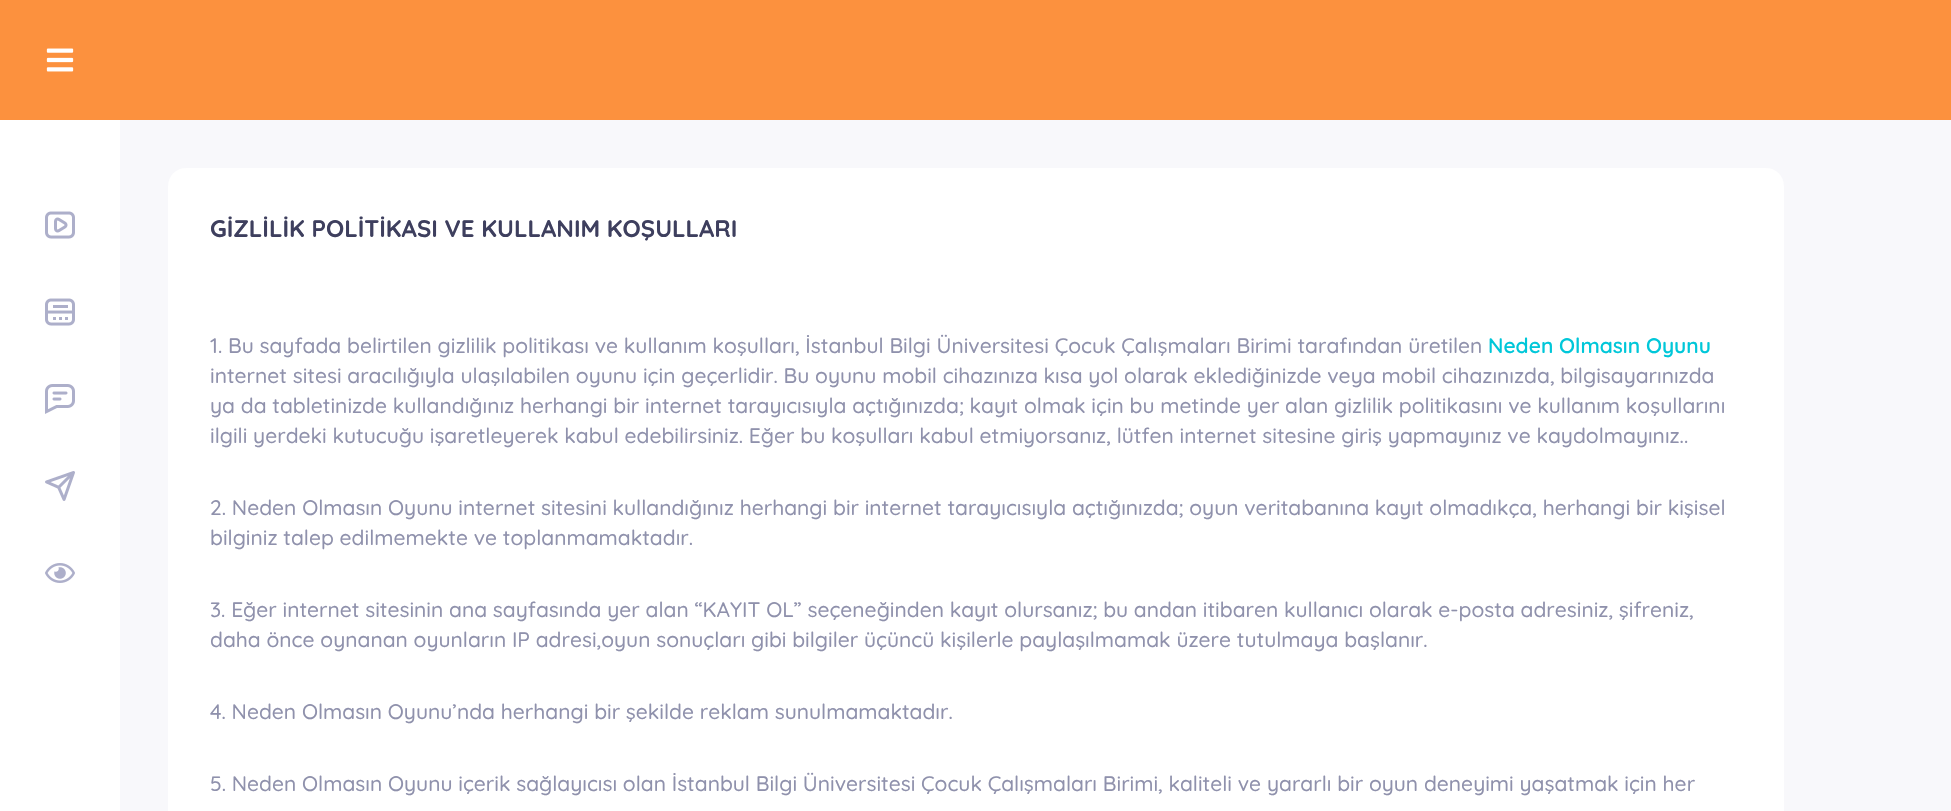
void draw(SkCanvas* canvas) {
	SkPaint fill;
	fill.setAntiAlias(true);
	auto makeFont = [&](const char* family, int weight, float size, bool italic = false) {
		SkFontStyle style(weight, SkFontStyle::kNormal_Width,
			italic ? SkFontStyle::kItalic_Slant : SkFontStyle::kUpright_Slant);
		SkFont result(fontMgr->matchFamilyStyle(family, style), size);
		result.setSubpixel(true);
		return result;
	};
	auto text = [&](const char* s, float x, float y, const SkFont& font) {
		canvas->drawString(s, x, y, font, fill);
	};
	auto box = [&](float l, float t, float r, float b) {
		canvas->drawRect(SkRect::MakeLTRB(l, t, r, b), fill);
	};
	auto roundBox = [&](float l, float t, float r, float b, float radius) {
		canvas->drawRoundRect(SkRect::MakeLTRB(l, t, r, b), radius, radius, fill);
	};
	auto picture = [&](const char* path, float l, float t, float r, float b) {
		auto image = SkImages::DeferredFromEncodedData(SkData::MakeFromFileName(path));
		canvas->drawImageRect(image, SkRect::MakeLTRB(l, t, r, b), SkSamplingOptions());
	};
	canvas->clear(0xFFF8F8FB);
	fill.setColor(0xFFFC913E);
	box(0, 0, 1951, 120);
	picture("image0.png", 46, 48, 74, 72);
	fill.setColor(0xFFFFFFFF);
	box(0, 120, 120, 811);
	picture("image1.png", 45, 211, 75, 239);
	picture("image2.png", 45, 298, 75, 326);
	picture("image3.png", 45, 384, 75, 414);
	picture("image4.png", 45, 471, 75, 501);
	picture("image5.png", 45, 563, 75, 583);
	roundBox(168, 168, 1784, 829, 18);
	auto font1 = makeFont("Quicksand", 700, 24);
	fill.setColor(0xFF3E3F5E);
	text("GİZLİLİK POLİTİKASI VE KULLANIM KOŞULLARI", 210, 237, font1);
	auto font2 = makeFont("Quicksand", 500, 21);
	fill.setColor(0xFF8F91AC);
	text("1. Bu sayfada belirtilen gizlilik politikası ve kullanım koşulları, İstanbul Bilgi Üniversitesi Çocuk Çalışmaları Birimi tarafından üretilen", 210, 353, font2);
	auto font3 = makeFont("Quicksand", 600, 21);
	fill.setColor(0xFF00C7D9);
	text("Neden Olmasın Oyunu", 1488, 353, font3);
	fill.setColor(0xFF8F91AC);
	text("internet sitesi aracılığıyla ulaşılabilen oyunu için geçerlidir. Bu oyunu mobil cihazınıza kısa yol olarak eklediğinizde veya mobil cihazınızda, bilgisayarınızda", 210, 383, font2);
	text("ya da tabletinizde kullandığınız herhangi bir internet tarayıcısıyla açtığınızda; kayıt olmak için bu metinde yer alan gizlilik politikasını ve kullanım koşullarını", 210, 413, font2);
	text("ilgili yerdeki kutucuğu işaretleyerek kabul edebilirsiniz. Eğer bu koşulları kabul etmiyorsanız, lütfen internet sitesine giriş yapmayınız ve kaydolmayınız..", 210, 443, font2);
	text("2. Neden Olmasın Oyunu internet sitesini kullandığınız herhangi bir internet tarayıcısıyla açtığınızda; oyun veritabanına kayıt olmadıkça, herhangi bir kişisel", 210, 515, font2);
	text("bilginiz talep edilmemekte ve toplanmamaktadır.", 210, 545, font2);
	text("3. Eğer internet sitesinin ana sayfasında yer alan “KAYIT OL” seçeneğinden kayıt olursanız; bu andan itibaren kullanıcı olarak e-posta adresiniz, şifreniz,", 210, 617, font2);
	text("daha önce oynanan oyunların IP adresi,oyun sonuçları gibi bilgiler üçüncü kişilerle paylaşılmamak üzere tutulmaya başlanır.", 210, 647, font2);
	text("4. Neden Olmasın Oyunu’nda herhangi bir şekilde reklam sunulmamaktadır.", 210, 719, font2);
	text("5. Neden Olmasın Oyunu içerik sağlayıcısı olan İstanbul Bilgi Üniversitesi Çocuk Çalışmaları Birimi, kaliteli ve yararlı bir oyun deneyimi yaşatmak için her", 210, 791, font2);
}
